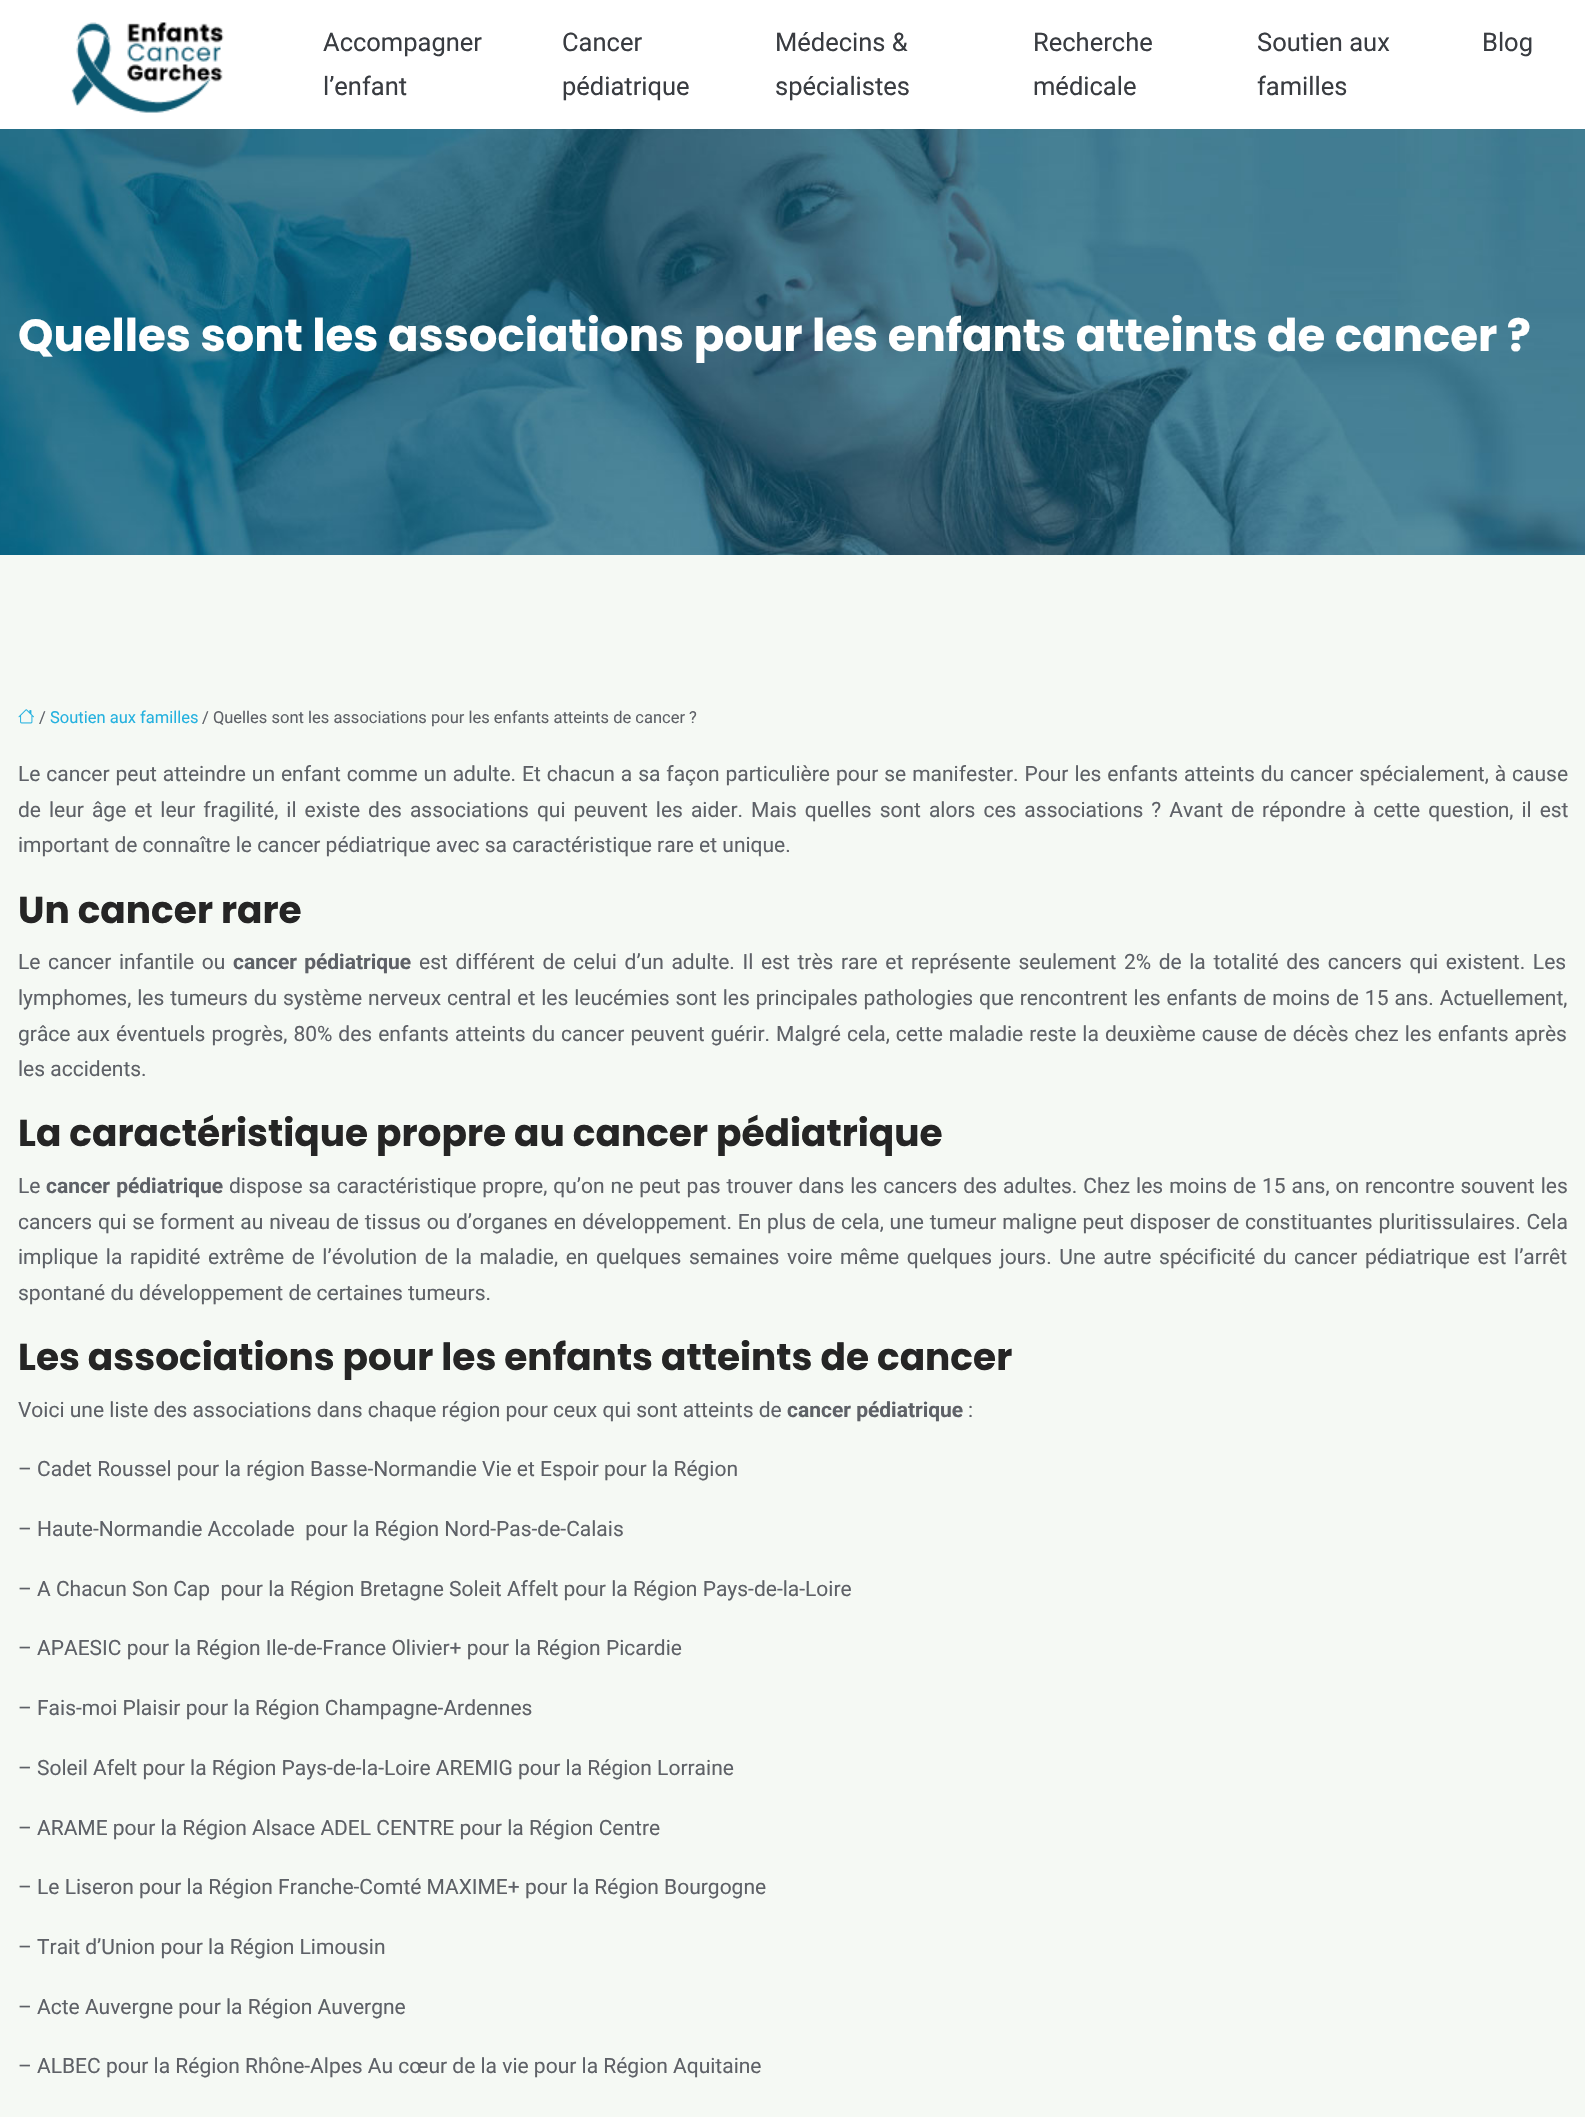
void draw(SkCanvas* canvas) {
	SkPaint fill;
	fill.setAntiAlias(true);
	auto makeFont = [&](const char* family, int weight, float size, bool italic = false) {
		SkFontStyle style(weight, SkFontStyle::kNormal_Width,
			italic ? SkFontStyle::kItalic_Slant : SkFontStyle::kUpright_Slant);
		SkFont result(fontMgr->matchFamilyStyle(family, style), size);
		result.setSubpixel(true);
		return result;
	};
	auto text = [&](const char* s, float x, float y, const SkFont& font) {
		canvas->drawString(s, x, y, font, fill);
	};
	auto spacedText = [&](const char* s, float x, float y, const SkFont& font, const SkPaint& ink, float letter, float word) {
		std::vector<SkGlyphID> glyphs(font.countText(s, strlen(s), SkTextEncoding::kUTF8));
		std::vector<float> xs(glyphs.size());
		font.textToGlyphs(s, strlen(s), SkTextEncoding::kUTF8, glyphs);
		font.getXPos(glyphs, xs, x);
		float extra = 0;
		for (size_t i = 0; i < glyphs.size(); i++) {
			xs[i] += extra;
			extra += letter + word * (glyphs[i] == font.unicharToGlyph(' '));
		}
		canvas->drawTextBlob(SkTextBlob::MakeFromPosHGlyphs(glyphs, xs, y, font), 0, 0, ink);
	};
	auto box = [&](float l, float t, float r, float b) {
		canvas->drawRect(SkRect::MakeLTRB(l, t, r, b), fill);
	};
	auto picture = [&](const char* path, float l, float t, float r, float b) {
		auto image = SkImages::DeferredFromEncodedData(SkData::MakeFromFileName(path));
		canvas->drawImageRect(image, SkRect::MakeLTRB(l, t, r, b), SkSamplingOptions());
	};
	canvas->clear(0xFFF5F9F4);
	fill.setColor(0xFFFFFFFF);
	box(0, 0, 1585, 129);
	picture("image0.png", 71, 22, 224, 113);
	picture("image1.png", 0, 129, 1585, 555);
	picture("image2.png", 18, 709, 34, 724);
	auto font1 = makeFont("Roboto", 400, 25.5f);
	fill.setColor(0xFF393C41);
	text("Accompagner", 323, 51, font1);
	text("l’enfant", 323, 95, font1);
	text("Cancer", 562, 51, font1);
	text("pédiatrique", 562, 95, font1);
	text("Médecins &", 775, 51, font1);
	text("spécialistes", 775, 95, font1);
	text("Recherche", 1033, 51, font1);
	text("médicale", 1033, 95, font1);
	text("Soutien aux", 1257, 51, font1);
	text("familles", 1257, 95, font1);
	text("Blog", 1482, 51, font1);
	auto font2 = makeFont("Poppins", 700, 45);
	fill.setColor(0xFFFFFFFF);
	text("Quelles sont les associations pour les enfants atteints de cancer ?", 18, 351, font2);
	auto font3 = makeFont("Roboto", 400, 16.5f);
	fill.setColor(0xFF5E6167);
	text("/", 39, 723, font3);
	fill.setColor(0xFF24B1DF);
	text("Soutien aux familles", 50, 723, font3);
	fill.setColor(0xFF5E6167);
	text("/ Quelles sont les associations pour les enfants atteints de cancer ?", 202, 723, font3);
	auto font4 = makeFont("Roboto", 400, 21);
	spacedText("Le cancer peut atteindre un enfant comme un adulte. Et chacun a sa façon particulière pour se manifester. Pour les enfants atteints du cancer spécialement, à cause", 18, 781, font4, fill, 0, 0.7f);
	spacedText("de leur âge et leur fragilité, il existe des associations qui peuvent les aider. Mais quelles sont alors ces associations ? Avant de répondre à cette question, il est", 18, 817, font4, fill, 0, 2.8f);
	text("important de connaître le cancer pédiatrique avec sa caractéristique rare et unique.", 18, 852, font4);
	auto font5 = makeFont("Poppins", 700, 37.5f);
	fill.setColor(0xFF252525);
	text("Un cancer rare", 18, 923, font5);
	fill.setColor(0xFF5E6167);
	spacedText("Le cancer infantile ou", 18, 969, font4, fill, 0, 2.4f);
	auto font6 = makeFont("Roboto", 700, 21);
	spacedText("cancer pédiatrique", 233, 969, font6, fill, 0, 2);
	spacedText("est différent de celui d’un adulte. Il est très rare et représente seulement 2% de la totalité des cancers qui existent. Les", 419, 969, font4, fill, 0, 2.4f);
	spacedText("lymphomes, les tumeurs du système nerveux central et les leucémies sont les principales pathologies que rencontrent les enfants de moins de 15 ans. Actuellement,", 18, 1005, font4, fill, 0, 0.7f);
	spacedText("grâce aux éventuels progrès, 80% des enfants atteints du cancer peuvent guérir. Malgré cela, cette maladie reste la deuxième cause de décès chez les enfants après", 18, 1041, font4, fill, 0, 0.8f);
	text("les accidents.", 18, 1076, font4);
	fill.setColor(0xFF252525);
	text("La caractéristique propre au cancer pédiatrique", 18, 1146, font5);
	fill.setColor(0xFF5E6167);
	text("Le", 18, 1193, font4);
	spacedText("cancer pédiatrique", 46, 1193, font6, fill, 0, 1);
	spacedText("dispose sa caractéristique propre, qu’on ne peut pas trouver dans les cancers des adultes. Chez les moins de 15 ans, on rencontre souvent les", 229, 1193, font4, fill, 0, 0.75f);
	spacedText("cancers qui se forment au niveau de tissus ou d’organes en développement. En plus de cela, une tumeur maligne peut disposer de constituantes pluritissulaires. Cela", 18, 1229, font4, fill, 0, 0.6f);
	spacedText("implique la rapidité extrême de l’évolution de la maladie, en quelques semaines voire même quelques jours. Une autre spécificité du cancer pédiatrique est l’arrêt", 18, 1264, font4, fill, 0, 2.4f);
	text("spontané du développement de certaines tumeurs.", 18, 1300, font4);
	fill.setColor(0xFF252525);
	text("Les associations pour les enfants atteints de cancer", 18, 1370, font5);
	fill.setColor(0xFF5E6167);
	text("Voici une liste des associations dans chaque région pour ceux qui sont atteints de", 18, 1417, font4);
	text("cancer pédiatrique", 787, 1417, font6);
	text(":", 968, 1417, font4);
	text("– Cadet Roussel pour la région Basse-Normandie Vie et Espoir pour la Région", 18, 1476, font4);
	text("– Haute-Normandie Accolade  pour la Région Nord-Pas-de-Calais", 18, 1536, font4);
	text("– A Chacun Son Cap  pour la Région Bretagne Soleit Affelt pour la Région Pays-de-la-Loire", 18, 1596, font4);
	text("– APAESIC pour la Région Ile-de-France Olivier+ pour la Région Picardie", 18, 1655, font4);
	text("– Fais-moi Plaisir pour la Région Champagne-Ardennes", 18, 1715, font4);
	text("– Soleil Afelt pour la Région Pays-de-la-Loire AREMIG pour la Région Lorraine", 18, 1775, font4);
	text("– ARAME pour la Région Alsace ADEL CENTRE pour la Région Centre", 18, 1835, font4);
	text("– Le Liseron pour la Région Franche-Comté MAXIME+ pour la Région Bourgogne", 18, 1894, font4);
	text("– Trait d’Union pour la Région Limousin", 18, 1954, font4);
	text("– Acte Auvergne pour la Région Auvergne", 18, 2014, font4);
	text("– ALBEC pour la Région Rhône-Alpes Au cœur de la vie pour la Région Aquitaine", 18, 2073, font4);
}
